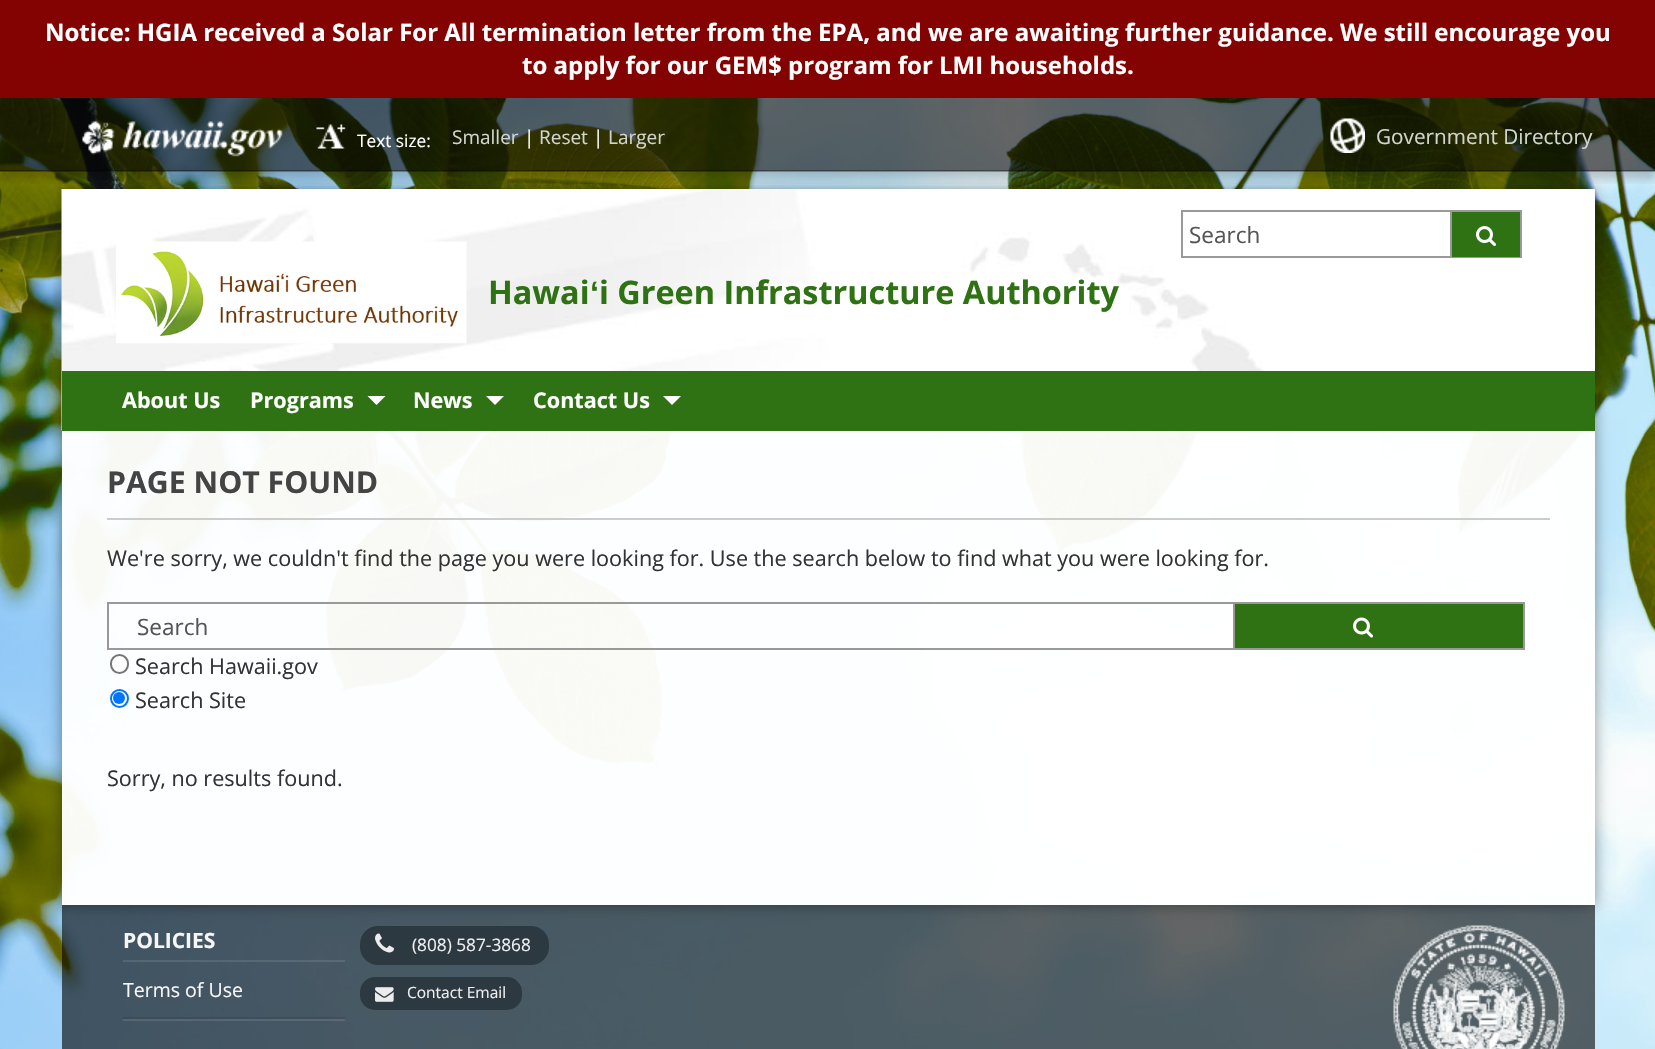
void draw(SkCanvas* canvas) {
	SkPaint fill;
	fill.setAntiAlias(true);
	auto makeFont = [&](const char* family, int weight, float size, bool italic = false) {
		SkFontStyle style(weight, SkFontStyle::kNormal_Width,
			italic ? SkFontStyle::kItalic_Slant : SkFontStyle::kUpright_Slant);
		SkFont result(fontMgr->matchFamilyStyle(family, style), size);
		result.setSubpixel(true);
		return result;
	};
	auto text = [&](const char* s, float x, float y, const SkFont& font) {
		canvas->drawString(s, x, y, font, fill);
	};
	auto box = [&](float l, float t, float r, float b) {
		canvas->drawRect(SkRect::MakeLTRB(l, t, r, b), fill);
	};
	auto roundBox = [&](float l, float t, float r, float b, float radius) {
		canvas->drawRoundRect(SkRect::MakeLTRB(l, t, r, b), radius, radius, fill);
	};
	auto picture = [&](const char* path, float l, float t, float r, float b) {
		auto image = SkImages::DeferredFromEncodedData(SkData::MakeFromFileName(path));
		canvas->drawImageRect(image, SkRect::MakeLTRB(l, t, r, b), SkSamplingOptions());
	};
	canvas->clear(0xFFFFFFFF);
	picture("image0.png", 0, 98, 1655, 1049);
	canvas->save();
	canvas->clipRect(SkRect::MakeLTRB(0, 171, 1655, 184));
	fill.setColor(0x33000000);
	fill.setMaskFilter(SkMaskFilter::MakeBlur(kNormal_SkBlurStyle, 4));
	canvas->drawRect(SkRect::MakeLTRB(0, 105, 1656, 179), fill);
	fill.setMaskFilter(nullptr);
	canvas->restore();
	fill.setColor(0xFF830202);
	box(0, 0, 1655, 98);
	canvas->save();
	canvas->clipPath(SkPathBuilder(SkPathFillType::kEvenOdd).moveTo(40, 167).lineTo(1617, 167).lineTo(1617, 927).lineTo(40, 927).close().moveTo(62, 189).lineTo(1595, 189).lineTo(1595, 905).lineTo(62, 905).close().detach(), true);
	fill.setColor(0x66000000);
	fill.setMaskFilter(SkMaskFilter::MakeBlur(kNormal_SkBlurStyle, 7));
	canvas->drawRect(SkRect::MakeLTRB(62, 189, 1595, 905), fill);
	fill.setMaskFilter(nullptr);
	canvas->restore();
	fill.setColor(0x99000000);
	box(0, 98, 1655, 171);
	fill.setColor(0x4D000000);
	box(0, 170, 1655, 172);
	picture("image1.png", 82, 121, 283, 157);
	picture("image2.png", 316, 124, 346, 149);
	picture("image3.png", 1330, 118, 1365, 153);
	fill.setColor(0xF5FFFFFF);
	box(62, 431, 1595, 905);
	fill.setColor(0xFFFFFFFF);
	box(1265, 189, 1595, 371);
	picture("image4.png", 61, 189, 1265, 431);
	fill.setStyle(SkPaint::kStroke_Style);
	fill.setStrokeWidth(2);
	fill.setColor(0xFF999999);
	canvas->drawRect(SkRect::MakeLTRB(1182, 211, 1451, 257), fill);
	fill.setStyle(SkPaint::kFill_Style);
	fill.setColor(0xFF2E7214);
	box(1452, 212, 1520, 257);
	fill.setColor(0xFF999999);
	box(1452, 210, 1521, 212);
	box(1520, 210, 1522, 258);
	box(1452, 257, 1521, 258);
	picture("image5.png", 1476, 226, 1496, 247);
	picture("image6.png", 116, 241, 467, 344);
	fill.setColor(0xFF2E7214);
	box(62, 371, 1595, 431);
	fill.setColor(0xFFFFFFFF);
	canvas->drawPath(SkPathBuilder().moveTo(367.5f, 396).lineTo(385.5f, 396).lineTo(376.5f, 405).close().detach(), fill);
	canvas->drawPath(SkPathBuilder().moveTo(486, 396).lineTo(504, 396).lineTo(495, 405).close().detach(), fill);
	canvas->drawPath(SkPathBuilder().moveTo(663, 396).lineTo(681, 396).lineTo(672, 405).close().detach(), fill);
	fill.setColor(0xFFCCCCCC);
	box(107, 518, 1550, 520);
	fill.setStyle(SkPaint::kStroke_Style);
	fill.setColor(0xFF999999);
	canvas->drawRect(SkRect::MakeLTRB(108, 603, 1234, 649), fill);
	fill.setStyle(SkPaint::kFill_Style);
	fill.setColor(0xFF2E7214);
	box(1235, 604, 1523, 648);
	fill.setColor(0xFF999999);
	box(1235, 602, 1524, 604);
	box(1523, 602, 1525, 650);
	box(1235, 648, 1524, 650);
	picture("image7.png", 1353, 617, 1373, 638);
	fill.setColor(0xFFFFFFFF);
	canvas->drawRoundRect(SkRect::MakeLTRB(111, 655, 128, 673), 8.5f, 8.5f, fill);
	fill.setStyle(SkPaint::kStroke_Style);
	fill.setColor(0xFF767676);
	canvas->drawRoundRect(SkRect::MakeLTRB(111, 655, 128, 673), 8.5f, 8.5f, fill);
	fill.setStyle(SkPaint::kFill_Style);
	fill.setColor(0xFFFFFFFF);
	canvas->drawCircle(119.5f, 698.5f, 8.5f, fill);
	fill.setStyle(SkPaint::kStroke_Style);
	fill.setColor(0xFF0075FF);
	canvas->drawCircle(119.5f, 698.5f, 8.5f, fill);
	fill.setStyle(SkPaint::kFill_Style);
	canvas->drawCircle(119, 698, 6, fill);
	fill.setColor(0x99000000);
	box(62, 905, 1595, 1049);
	picture("image8.png", 1393, 925, 1565, 1049);
	fill.setColor(0x1AFFFFFF);
	box(123, 960, 345, 962);
	fill.setColor(0x1A000000);
	box(123, 1017, 345, 1019);
	fill.setColor(0x1AFFFFFF);
	box(123, 1019, 345, 1021);
	fill.setColor(0xFF2D3940);
	roundBox(360, 926, 549, 965, 18);
	picture("image9.png", 375, 933, 394, 953);
	roundBox(360, 977, 522, 1010, 15);
	picture("image10.png", 375, 987, 394, 1002);
	auto font1 = makeFont("Open Sans", 700, 24);
	fill.setColor(0xFFFFFFFF);
	text("Notice: HGIA received a Solar For All termination letter from the EPA, and we are awaiting further guidance. We still encourage you", 45, 41, font1);
	text("to apply for our GEM$ program for LMI households.", 522, 74, font1);
	auto font2 = makeFont("Open Sans", 400, 17.25f);
	text("Text size:", 357, 147, font2);
	auto font3 = makeFont("Open Sans", 400, 19);
	fill.setColor(0xFFD2D4CF);
	text("Smaller", 452, 144, font3);
	fill.setColor(0xFFFFFFFF);
	text("|", 524, 144, font3);
	fill.setColor(0xFFD2D4CF);
	text("Reset", 539, 144, font3);
	fill.setColor(0xFFFFFFFF);
	text("|", 593, 144, font3);
	fill.setColor(0xFFD2D4CF);
	text("Larger", 608, 144, font3);
	auto font4 = makeFont("Open Sans", 400, 20.75f);
	text("Government Directory", 1376, 144, font4);
	auto font5 = makeFont("Open Sans", 400, 22.5f);
	fill.setColor(0xFF555555);
	text("Search", 1189, 243, font5);
	auto font6 = makeFont("Open Sans", 700, 32.4f);
	fill.setColor(0xFF2E7214);
	text("Hawai", 488, 304, font6);
	auto font7 = makeFont("Liberation Sans", 700, 32.4f);
	text("ʻ", 590, 304, font7);
	text("i Green Infrastructure Authority", 599, 304, font6);
	auto font8 = makeFont("Open Sans", 700, 21.6f);
	fill.setColor(0xFFFFFFFF);
	text("About Us", 122, 408, font8);
	text("Programs", 250, 408, font8);
	text("News", 413, 408, font8);
	text("Contact Us", 533, 408, font8);
	auto font9 = makeFont("Open Sans", 700, 30.25f);
	fill.setColor(0xFF444444);
	text("PAGE NOT FOUND", 107, 493, font9);
	auto font10 = makeFont("Open Sans", 400, 21.6f);
	fill.setColor(0xFF333333);
	text("We're sorry, we couldn't find the page you were looking for. Use the search below to find what you were looking for.", 107, 566, font10);
	fill.setColor(0xFF555555);
	text("Search", 137, 635, font5);
	fill.setColor(0xFF333333);
	text("Search Hawaii.gov", 135, 674, font10);
	text("Search Site", 135, 708, font10);
	text("Sorry, no results found.", 107, 786, font10);
	auto font11 = makeFont("Open Sans", 700, 21);
	fill.setColor(0xFFF6F6F7);
	text("POLICIES", 123, 948, font11);
	auto font12 = makeFont("Open Sans", 400, 19.5f);
	text("Terms of Use", 123, 997, font12);
	fill.setColor(0xFFEDEEEF);
	text("(808) 587-3868", 412, 951, font2);
	auto font13 = makeFont("Open Sans", 400, 15.5f);
	text("Contact Email", 407, 998, font13);
}
